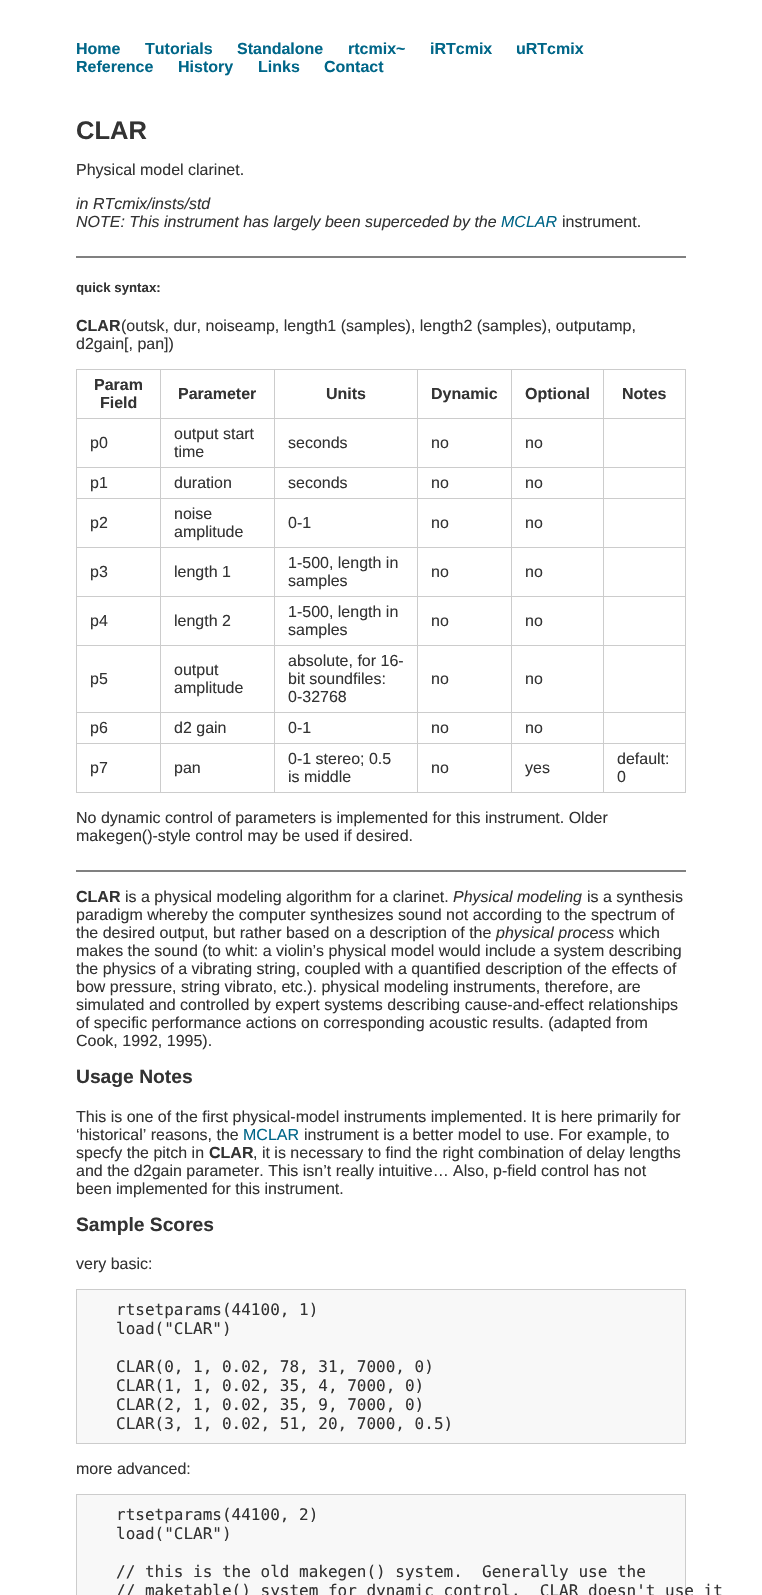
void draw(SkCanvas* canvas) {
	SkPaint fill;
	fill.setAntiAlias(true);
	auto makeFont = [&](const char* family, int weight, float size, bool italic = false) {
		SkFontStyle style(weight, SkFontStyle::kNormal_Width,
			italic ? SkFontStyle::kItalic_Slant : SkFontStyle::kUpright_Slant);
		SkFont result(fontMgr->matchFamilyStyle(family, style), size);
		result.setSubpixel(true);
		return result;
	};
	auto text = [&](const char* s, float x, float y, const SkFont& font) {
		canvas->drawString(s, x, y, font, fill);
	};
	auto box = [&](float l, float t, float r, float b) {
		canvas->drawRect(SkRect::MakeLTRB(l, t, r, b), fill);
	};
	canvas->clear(0xFFFFFFFF);
	fill.setColor(0xFF808080);
	box(76, 256, 686, 258);
	fill.setColor(0xFFCCCCCC);
	box(76, 369, 686, 370);
	box(76, 418, 686, 419);
	box(76, 467, 686, 468);
	box(76, 498, 686, 499);
	box(76, 547, 686, 548);
	box(76, 596, 686, 597);
	box(76, 645, 686, 646);
	box(76, 712, 686, 713);
	box(76, 743, 686, 744);
	box(685, 369, 686, 793);
	box(603, 792, 686, 793);
	box(603, 369, 604, 793);
	box(511, 792, 604, 793);
	box(511, 369, 512, 793);
	box(417, 792, 512, 793);
	box(417, 369, 418, 793);
	box(274, 792, 418, 793);
	box(274, 369, 275, 793);
	box(160, 792, 275, 793);
	box(160, 369, 161, 793);
	box(76, 792, 161, 793);
	box(76, 369, 77, 793);
	fill.setColor(0xFF808080);
	box(76, 870, 686, 872);
	fill.setColor(0xFFF8F8F8);
	canvas->drawRect(SkRect::MakeLTRB(76.5f, 1289.5f, 685.5f, 1443.5f), fill);
	fill.setStyle(SkPaint::kStroke_Style);
	fill.setStrokeWidth(1);
	fill.setColor(0xFFCCCCCC);
	canvas->drawRect(SkRect::MakeLTRB(76.5f, 1289.5f, 685.5f, 1443.5f), fill);
	fill.setStyle(SkPaint::kFill_Style);
	fill.setColor(0xFFF8F8F8);
	canvas->drawRect(SkRect::MakeLTRB(76.5f, 1494.5f, 685.5f, 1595.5f), fill);
	fill.setStyle(SkPaint::kStroke_Style);
	fill.setColor(0xFFCCCCCC);
	canvas->drawRect(SkRect::MakeLTRB(76.5f, 1494.5f, 685.5f, 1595.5f), fill);
	auto font1 = makeFont("Liberation Sans", 700, 16);
	fill.setStyle(SkPaint::kFill_Style);
	fill.setColor(0xFF006688);
	text("Home", 76, 54, font1);
	text("Tutorials", 145, 54, font1);
	text("Standalone", 237, 54, font1);
	text("rtcmix~", 348, 54, font1);
	text("iRTcmix", 430, 54, font1);
	text("uRTcmix", 516, 54, font1);
	text("Reference", 76, 72, font1);
	text("History", 178, 72, font1);
	text("Links", 258, 72, font1);
	text("Contact", 324, 72, font1);
	auto font2 = makeFont("Liberation Sans", 700, 25.5f);
	fill.setColor(0xFF333333);
	text("CLAR", 76, 139, font2);
	auto font3 = makeFont("Liberation Sans", 400, 16);
	text("Physical model clarinet.", 76, 175, font3);
	auto font4 = makeFont("Liberation Sans", 400, 16, true);
	text("in RTcmix/insts/std", 76, 209, font4);
	text("NOTE: This instrument has largely been superceded by the", 76, 227, font4);
	fill.setColor(0xFF006688);
	text("MCLAR", 501, 227, font4);
	fill.setColor(0xFF333333);
	text("instrument.", 562, 227, font3);
	auto font5 = makeFont("Liberation Sans", 700, 13.25f);
	text("quick syntax:", 76, 292, font5);
	text("CLAR", 76, 331, font1);
	text("(outsk, dur, noiseamp, length1 (samples), length2 (samples), outputamp,", 121, 331, font3);
	text("d2gain[, pan])", 76, 349, font3);
	text("Param", 94, 390, font1);
	text("Field", 100, 408, font1);
	text("Parameter", 178, 399, font1);
	text("Units", 326, 399, font1);
	text("Dynamic", 431, 399, font1);
	text("Optional", 525, 399, font1);
	text("Notes", 622, 399, font1);
	text("p0", 90, 448, font3);
	text("output start", 174, 439, font3);
	text("time", 174, 457, font3);
	text("seconds", 288, 448, font3);
	text("no", 431, 448, font3);
	text("no", 525, 448, font3);
	text("p1", 90, 488, font3);
	text("duration", 174, 488, font3);
	text("seconds", 288, 488, font3);
	text("no", 431, 488, font3);
	text("no", 525, 488, font3);
	text("p2", 90, 528, font3);
	text("noise", 174, 519, font3);
	text("amplitude", 174, 537, font3);
	text("0-1", 288, 528, font3);
	text("no", 431, 528, font3);
	text("no", 525, 528, font3);
	text("p3", 90, 577, font3);
	text("length 1", 174, 577, font3);
	text("1-500, length in", 288, 568, font3);
	text("samples", 288, 586, font3);
	text("no", 431, 577, font3);
	text("no", 525, 577, font3);
	text("p4", 90, 626, font3);
	text("length 2", 174, 626, font3);
	text("1-500, length in", 288, 617, font3);
	text("samples", 288, 635, font3);
	text("no", 431, 626, font3);
	text("no", 525, 626, font3);
	text("p5", 90, 684, font3);
	text("output", 174, 675, font3);
	text("amplitude", 174, 693, font3);
	text("absolute, for 16-", 288, 666, font3);
	text("bit soundfiles:", 288, 684, font3);
	text("0-32768", 288, 702, font3);
	text("no", 431, 684, font3);
	text("no", 525, 684, font3);
	text("p6", 90, 733, font3);
	text("d2 gain", 174, 733, font3);
	text("0-1", 288, 733, font3);
	text("no", 431, 733, font3);
	text("no", 525, 733, font3);
	text("p7", 90, 773, font3);
	text("pan", 174, 773, font3);
	text("0-1 stereo; 0.5", 288, 764, font3);
	text("is middle", 288, 782, font3);
	text("no", 431, 773, font3);
	text("yes", 525, 773, font3);
	text("default:", 617, 764, font3);
	text("0", 617, 782, font3);
	text("No dynamic control of parameters is implemented for this instrument. Older", 76, 823, font3);
	text("makegen()-style control may be used if desired.", 76, 841, font3);
	text("CLAR", 76, 902, font1);
	text("is a physical modeling algorithm for a clarinet.", 125, 902, font3);
	text("Physical modeling", 453, 902, font4);
	text("is a synthesis", 587, 902, font3);
	text("paradigm whereby the computer synthesizes sound not according to the spectrum of", 76, 920, font3);
	text("the desired output, but rather based on a description of the", 76, 938, font3);
	text("physical process", 496, 938, font4);
	text("which", 619, 938, font3);
	text("makes the sound (to whit: a violin’s physical model would include a system describing", 76, 956, font3);
	text("the physics of a vibrating string, coupled with a quantified description of the effects of", 76, 974, font3);
	text("bow pressure, string vibrato, etc.). physical modeling instruments, therefore, are", 76, 992, font3);
	text("simulated and controlled by expert systems describing cause-and-effect relationships", 76, 1010, font3);
	text("of specific performance actions on corresponding acoustic results. (adapted from", 76, 1028, font3);
	text("Cook, 1992, 1995).", 76, 1046, font3);
	auto font6 = makeFont("Liberation Sans", 700, 19.25f);
	text("Usage Notes", 76, 1083, font6);
	text("This is one of the first physical-model instruments implemented. It is here primarily for", 76, 1122, font3);
	text("‘historical’ reasons, the", 76, 1140, font3);
	fill.setColor(0xFF006688);
	text("MCLAR", 243, 1140, font3);
	fill.setColor(0xFF333333);
	text("instrument is a better model to use. For example, to", 304, 1140, font3);
	text("specfy the pitch in", 76, 1158, font3);
	text("CLAR", 209, 1158, font1);
	text(", it is necessary to find the right combination of delay lengths", 253, 1158, font3);
	text("and the d2gain parameter. This isn’t really intuitive… Also, p-field control has not", 76, 1176, font3);
	text("been implemented for this instrument.", 76, 1194, font3);
	text("Sample Scores", 76, 1231, font6);
	text("very basic:", 76, 1269, font3);
	auto font7 = makeFont("DejaVu Sans Mono", 400, 16);
	text("rtsetparams(44100, 1)", 116, 1315, font7);
	text("load(\"CLAR\")", 116, 1334, font7);
	text("CLAR(0, 1, 0.02, 78, 31, 7000, 0)", 116, 1372, font7);
	text("CLAR(1, 1, 0.02, 35, 4, 7000, 0)", 116, 1391, font7);
	text("CLAR(2, 1, 0.02, 35, 9, 7000, 0)", 116, 1410, font7);
	text("CLAR(3, 1, 0.02, 51, 20, 7000, 0.5)", 116, 1429, font7);
	text("more advanced:", 76, 1474, font3);
	text("rtsetparams(44100, 2)", 116, 1520, font7);
	text("load(\"CLAR\")", 116, 1539, font7);
	text("// this is the old makegen() system.  Generally use the", 116, 1577, font7);
	text("// maketable() system for dynamic control.  CLAR doesn't use it", 116, 1596, font7);
}
